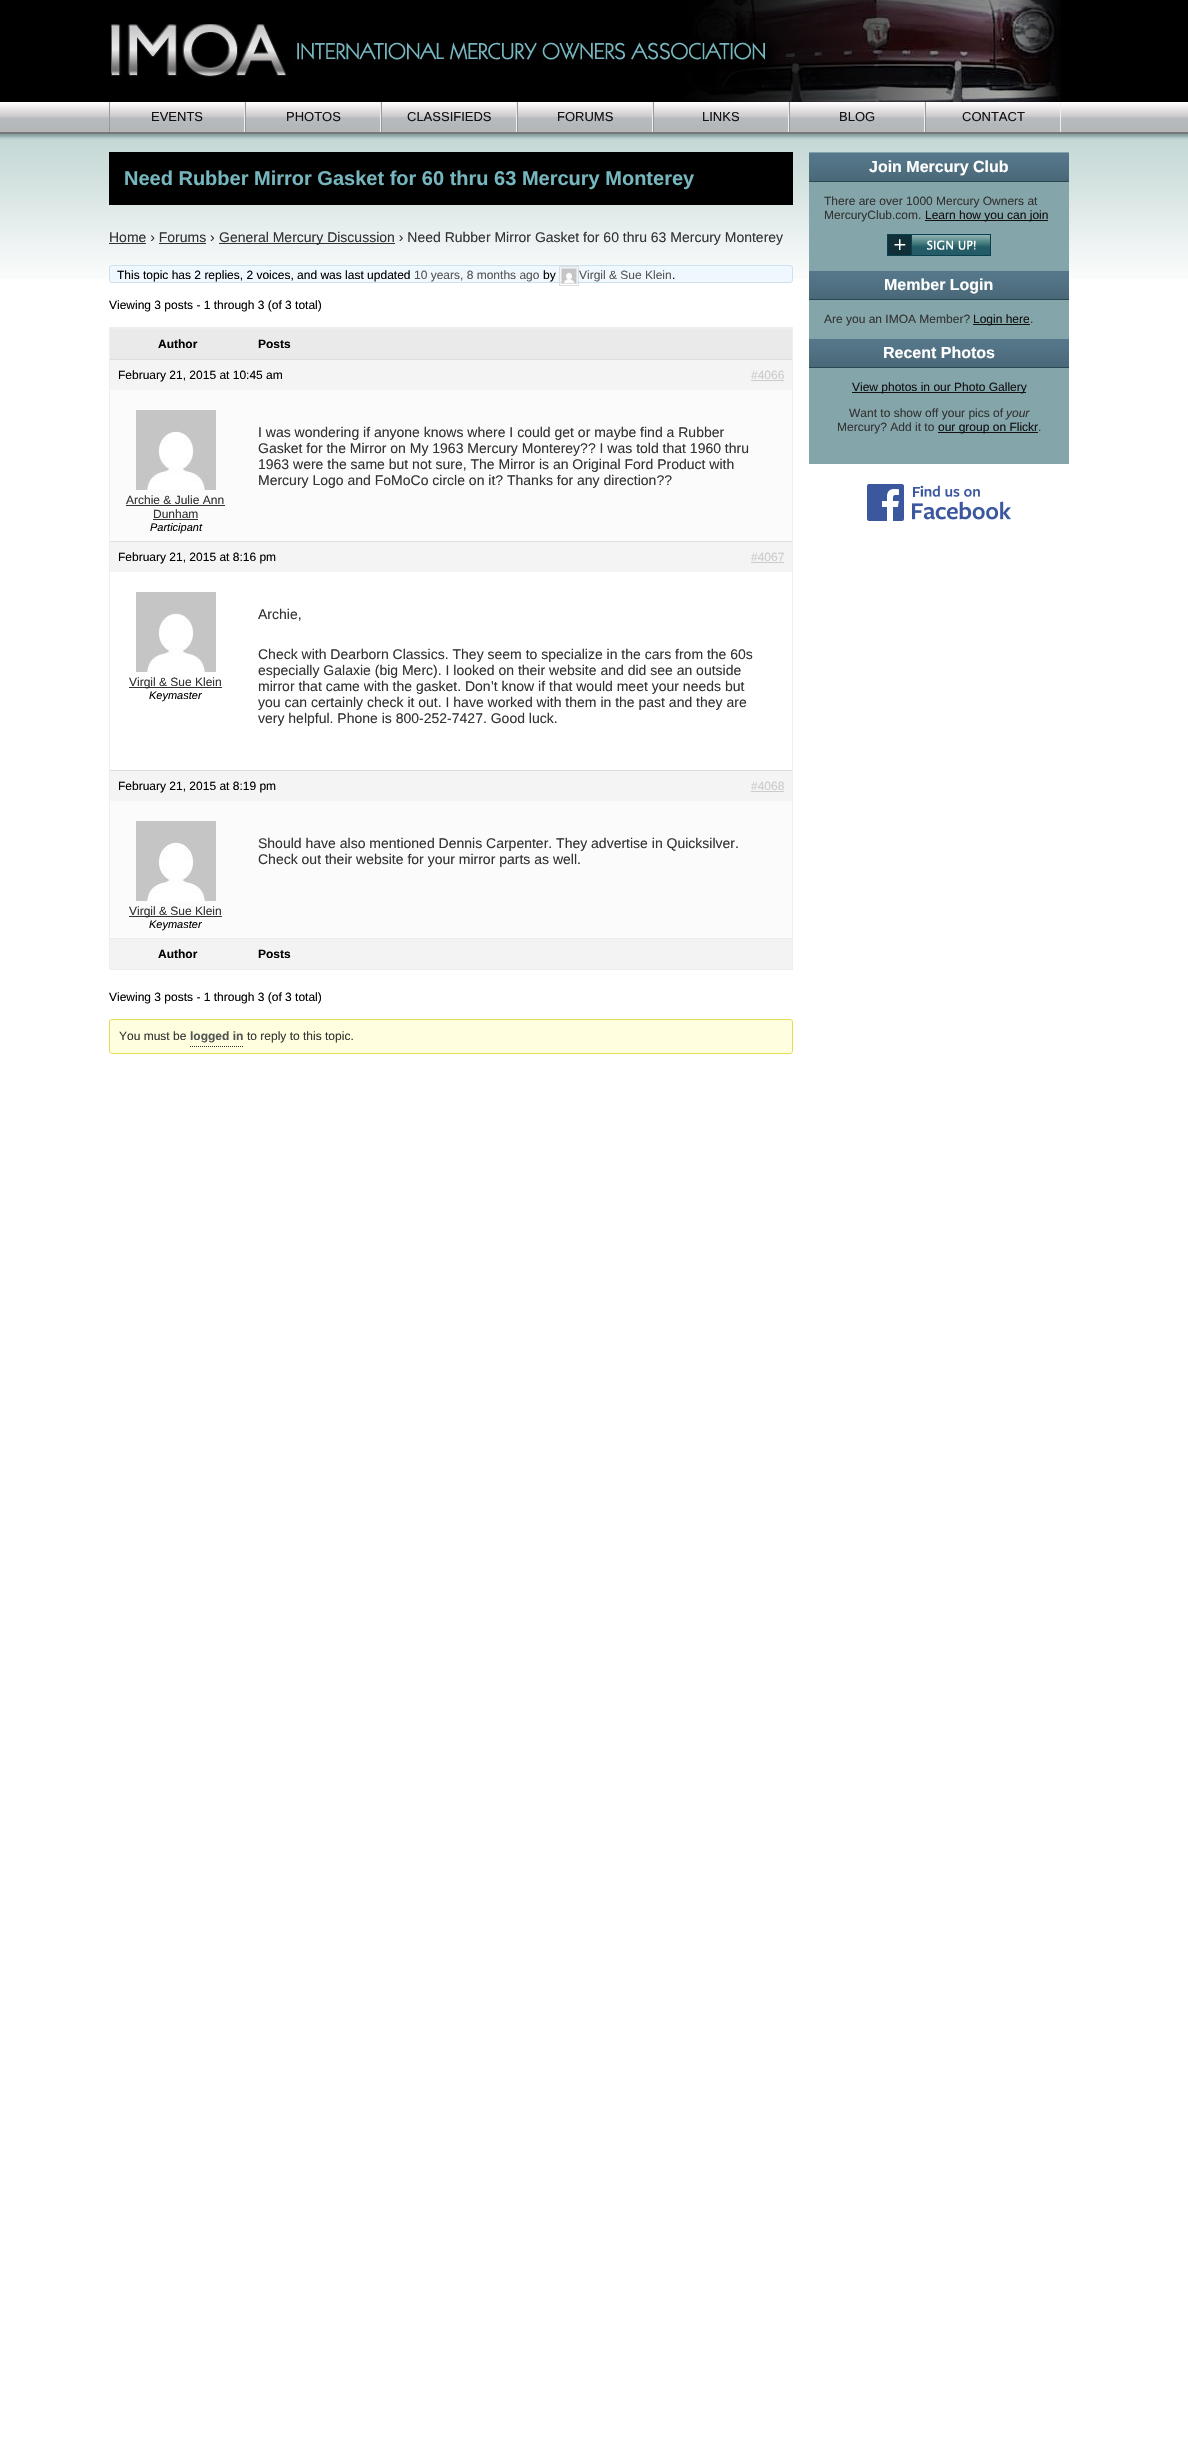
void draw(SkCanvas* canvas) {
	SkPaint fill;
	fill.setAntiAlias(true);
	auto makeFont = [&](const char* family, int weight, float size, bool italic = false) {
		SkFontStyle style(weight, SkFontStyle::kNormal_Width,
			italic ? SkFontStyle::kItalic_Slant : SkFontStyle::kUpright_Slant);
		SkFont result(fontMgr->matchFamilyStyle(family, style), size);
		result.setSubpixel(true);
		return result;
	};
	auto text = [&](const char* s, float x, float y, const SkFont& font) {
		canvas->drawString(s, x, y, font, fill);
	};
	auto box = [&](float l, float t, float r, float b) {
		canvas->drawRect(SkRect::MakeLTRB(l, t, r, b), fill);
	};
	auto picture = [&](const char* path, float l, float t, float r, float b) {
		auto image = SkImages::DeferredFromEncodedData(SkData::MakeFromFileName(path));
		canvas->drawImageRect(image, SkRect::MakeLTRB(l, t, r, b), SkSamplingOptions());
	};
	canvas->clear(0xFFFFFFFF);
	picture("image0.png", 0, 0, 1188, 279);
	picture("image1.png", 110, 0, 1061, 102);
	fill.setColor(0xFFEEEEEE);
	box(244, 102, 245, 132);
	fill.setColor(0xFF999999);
	box(109, 102, 110, 132);
	fill.setColor(0xFFEEEEEE);
	box(380, 102, 381, 132);
	fill.setColor(0xFF999999);
	box(245, 102, 246, 132);
	fill.setColor(0xFFEEEEEE);
	box(516, 102, 517, 132);
	fill.setColor(0xFF999999);
	box(381, 102, 382, 132);
	fill.setColor(0xFFEEEEEE);
	box(652, 102, 653, 132);
	fill.setColor(0xFF999999);
	box(517, 102, 518, 132);
	fill.setColor(0xFFEEEEEE);
	box(788, 102, 789, 132);
	fill.setColor(0xFF999999);
	box(653, 102, 654, 132);
	fill.setColor(0xFFEEEEEE);
	box(924, 102, 925, 132);
	fill.setColor(0xFF999999);
	box(789, 102, 790, 132);
	fill.setColor(0xFFEEEEEE);
	box(1060, 102, 1061, 132);
	fill.setColor(0xFF999999);
	box(925, 102, 926, 132);
	fill.setColor(0xFF000000);
	box(109, 152, 793, 205);
	fill.setColor(0xFF333333);
	box(109, 243, 146, 244);
	box(219, 243, 395, 244);
	box(159, 243, 206, 244);
	fill.setColor(0xFFF0F8FF);
	canvas->drawRoundRect(SkRect::MakeLTRB(109.5f, 265.5f, 792.5f, 282.5f), 2.5f, 2.5f, fill);
	fill.setStyle(SkPaint::kStroke_Style);
	fill.setStrokeWidth(1);
	fill.setColor(0xFFCEE1EF);
	canvas->drawRoundRect(SkRect::MakeLTRB(109.5f, 265.5f, 792.5f, 282.5f), 2.5f, 2.5f, fill);
	fill.setColor(0xFFDDDDDD);
	canvas->drawRect(SkRect::MakeLTRB(559.5f, 266.5f, 578.5f, 285.5f), fill);
	canvas->drawRect(SkRect::MakeLTRB(561.5f, 268.5f, 576.5f, 283.5f), fill);
	picture("image2.png", 562, 269, 576, 283);
	fill.setColor(0xFFEEEEEE);
	canvas->drawRect(SkRect::MakeLTRB(109.5f, 327.5f, 792.5f, 969.5f), fill);
	fill.setStyle(SkPaint::kFill_Style);
	fill.setColor(0xFFEAEAEA);
	box(110, 329, 792, 359);
	fill.setColor(0xFFEEEEEE);
	box(110, 328, 792, 329);
	fill.setColor(0xFFF4F4F4);
	box(110, 360, 792, 390);
	fill.setColor(0xFFDDDDDD);
	box(110, 359, 792, 360);
	fill.setColor(0xFFCCCCCC);
	box(751, 380, 784, 381);
	fill.setColor(0xFFFBFBFB);
	box(110, 390, 792, 541);
	picture("image3.png", 136, 410, 216, 490);
	fill.setColor(0xFF333333);
	box(126, 505, 225, 506);
	box(153, 519, 198, 520);
	fill.setColor(0xFFF4F4F4);
	box(110, 542, 792, 572);
	fill.setColor(0xFFDDDDDD);
	box(110, 541, 792, 542);
	fill.setColor(0xFFCCCCCC);
	box(751, 562, 784, 563);
	picture("image3.png", 136, 592, 216, 672);
	fill.setColor(0xFF333333);
	box(129, 687, 222, 688);
	fill.setColor(0xFFF4F4F4);
	box(110, 771, 792, 801);
	fill.setColor(0xFFDDDDDD);
	box(110, 770, 792, 771);
	fill.setColor(0xFFCCCCCC);
	box(751, 791, 784, 792);
	fill.setColor(0xFFFBFBFB);
	box(110, 801, 792, 938);
	picture("image3.png", 136, 821, 216, 901);
	fill.setColor(0xFF333333);
	box(129, 916, 222, 917);
	fill.setColor(0xFFF3F3F3);
	box(110, 939, 792, 969);
	fill.setColor(0xFFEEEEEE);
	box(110, 938, 792, 939);
	fill.setColor(0xFFFFFFE0);
	canvas->drawRoundRect(SkRect::MakeLTRB(109.5f, 1019.5f, 792.5f, 1053.5f), 2.5f, 2.5f, fill);
	fill.setStyle(SkPaint::kStroke_Style);
	fill.setColor(0xFFE6DB55);
	canvas->drawRoundRect(SkRect::MakeLTRB(109.5f, 1019.5f, 792.5f, 1053.5f), 2.5f, 2.5f, fill);
	fill.setColor(0xFF333333);
	fill.setPathEffect(SkDashPathEffect::Make({{1, 1}}, 0));
	canvas->drawPath(SkPathBuilder().moveTo(190, 1046.5f).lineTo(243, 1046.5f).detach(), fill);
	fill.setPathEffect(nullptr);
	fill.setStyle(SkPaint::kFill_Style);
	fill.setColor(0xFF84A5A9);
	box(809, 182, 1069, 464);
	picture("image4.png", 809, 153, 1069, 181);
	fill.setColor(0xFF83A2AC);
	box(809, 152, 1069, 153);
	fill.setColor(0xFF294852);
	box(809, 181, 1069, 182);
	fill.setColor(0xFF111111);
	box(925, 220, 1048, 221);
	picture("image5.png", 887, 234, 991, 256);
	picture("image4.png", 809, 271, 1069, 299);
	fill.setColor(0xFF83A2AC);
	box(809, 270, 1069, 271);
	fill.setColor(0xFF294852);
	box(809, 299, 1069, 300);
	fill.setColor(0xFF111111);
	box(973, 324, 1030, 325);
	picture("image4.png", 809, 339, 1069, 367);
	fill.setColor(0xFF83A2AC);
	box(809, 338, 1069, 339);
	fill.setColor(0xFF294852);
	box(809, 367, 1069, 368);
	fill.setColor(0xFF111111);
	box(852, 392, 1026, 393);
	box(938, 432, 1038, 433);
	picture("image6.png", 867, 484, 1011, 521);
	auto font1 = makeFont("Liberation Sans", 400, 13);
	text("EVENTS", 151, 121, font1);
	text("PHOTOS", 286, 121, font1);
	text("CLASSIFIEDS", 407, 121, font1);
	text("FORUMS", 557, 121, font1);
	text("LINKS", 702, 121, font1);
	text("BLOG", 839, 121, font1);
	text("CONTACT", 962, 121, font1);
	auto font2 = makeFont("Liberation Sans", 700, 20);
	fill.setColor(0xFF76B6BE);
	text("Need Rubber Mirror Gasket for 60 thru 63 Mercury Monterey", 124, 185, font2);
	auto font3 = makeFont("Liberation Sans", 400, 14);
	fill.setColor(0xFF333333);
	text("Home › Forums ›", 109, 242, font3);
	text("General Mercury Discussion › Need Rubber Mirror Gasket for 60 thru 63 Mercury Monterey", 219, 242, font3);
	auto font4 = makeFont("Liberation Sans", 400, 12);
	fill.setColor(0xFF000000);
	text("This topic has 2 replies, 2 voices, and was last updated", 117, 279, font4);
	fill.setColor(0xFF555555);
	text("10 years, 8 months ago", 414, 279, font4);
	fill.setColor(0xFF000000);
	text("by", 543, 279, font4);
	fill.setColor(0xFF555555);
	text("Virgil & Sue Klein", 579, 279, font4);
	fill.setColor(0xFF000000);
	text(".", 672, 279, font4);
	text("Viewing 3 posts - 1 through 3 (of 3 total)", 109, 309, font4);
	auto font5 = makeFont("Liberation Sans", 700, 12);
	text("Author", 158, 348, font5);
	text("Posts", 258, 348, font5);
	text("February 21, 2015 at 10:45 am", 118, 379, font4);
	fill.setColor(0xFFCCCCCC);
	text("#4066", 751, 379, font4);
	fill.setColor(0xFF333333);
	text("I was wondering if anyone knows where I could get or maybe find a Rubber", 258, 437, font3);
	text("Gasket for the Mirror on My 1963 Mercury Monterey?\077 I was told that 1960 thru", 258, 453, font3);
	text("1963 were the same but not sure, The Mirror is an Original Ford Product with", 258, 469, font3);
	text("Mercury Logo and FoMoCo circle on it? Thanks for any direction?\077", 258, 485, font3);
	text("Archie & Julie Ann", 126, 504, font4);
	text("Dunham", 153, 518, font4);
	auto font6 = makeFont("Liberation Sans", 400, 11, true);
	fill.setColor(0xFF000000);
	text("Participant", 150, 531, font6);
	text("February 21, 2015 at 8:16 pm", 118, 561, font4);
	fill.setColor(0xFFCCCCCC);
	text("#4067", 751, 561, font4);
	fill.setColor(0xFF333333);
	text("Virgil & Sue Klein", 129, 686, font4);
	fill.setColor(0xFF000000);
	text("Keymaster", 149, 699, font6);
	fill.setColor(0xFF333333);
	text("Archie,", 258, 619, font3);
	text("Check with Dearborn Classics. They seem to specialize in the cars from the 60s", 258, 659, font3);
	text("especially Galaxie (big Merc). I looked on their website and did see an outside", 258, 675, font3);
	text("mirror that came with the gasket. Don’t know if that would meet your needs but", 258, 691, font3);
	text("you can certainly check it out. I have worked with them in the past and they are", 258, 707, font3);
	text("very helpful. Phone is 800-252-7427. Good luck.", 258, 723, font3);
	fill.setColor(0xFF000000);
	text("February 21, 2015 at 8:19 pm", 118, 790, font4);
	fill.setColor(0xFFCCCCCC);
	text("#4068", 751, 790, font4);
	fill.setColor(0xFF333333);
	text("Should have also mentioned Dennis Carpenter. They advertise in Quicksilver.", 258, 848, font3);
	text("Check out their website for your mirror parts as well.", 258, 864, font3);
	text("Virgil & Sue Klein", 129, 915, font4);
	fill.setColor(0xFF000000);
	text("Keymaster", 149, 928, font6);
	text("Author", 158, 958, font5);
	text("Posts", 258, 958, font5);
	text("Viewing 3 posts - 1 through 3 (of 3 total)", 109, 1001, font4);
	fill.setColor(0xFF333333);
	text("You must be", 119, 1040, font4);
	fill.setColor(0xFF555555);
	text("logged in", 190, 1040, font5);
	fill.setColor(0xFF333333);
	text("to reply to this topic.", 247, 1040, font4);
	auto font7 = makeFont("Liberation Sans", 700, 16);
	fill.setColor(0xFFFFFFFF);
	text("Join Mercury Club", 869, 172, font7);
	fill.setColor(0xFF333333);
	text("There are over 1000 Mercury Owners at", 824, 205, font4);
	text("MercuryClub.com.", 824, 219, font4);
	fill.setColor(0xFF111111);
	text("Learn how you can join", 925, 219, font4);
	fill.setColor(0xFFFFFFFF);
	text("Member Login", 884, 290, font7);
	fill.setColor(0xFF333333);
	text("Are you an IMOA Member?", 824, 323, font4);
	fill.setColor(0xFF111111);
	text("Login here", 973, 323, font4);
	fill.setColor(0xFF333333);
	text(".", 1030, 323, font4);
	fill.setColor(0xFFFFFFFF);
	text("Recent Photos", 883, 358, font7);
	fill.setColor(0xFF111111);
	text("View photos in our Photo Gallery", 852, 391, font4);
	fill.setColor(0xFF333333);
	text("Want to show off your pics of", 849, 417, font4);
	auto font8 = makeFont("Liberation Sans", 400, 12, true);
	text("your", 1006, 417, font8);
	text("Mercury? Add it to", 837, 431, font4);
	fill.setColor(0xFF111111);
	text("our group on Flickr", 938, 431, font4);
	fill.setColor(0xFF333333);
	text(".", 1038, 431, font4);
}
